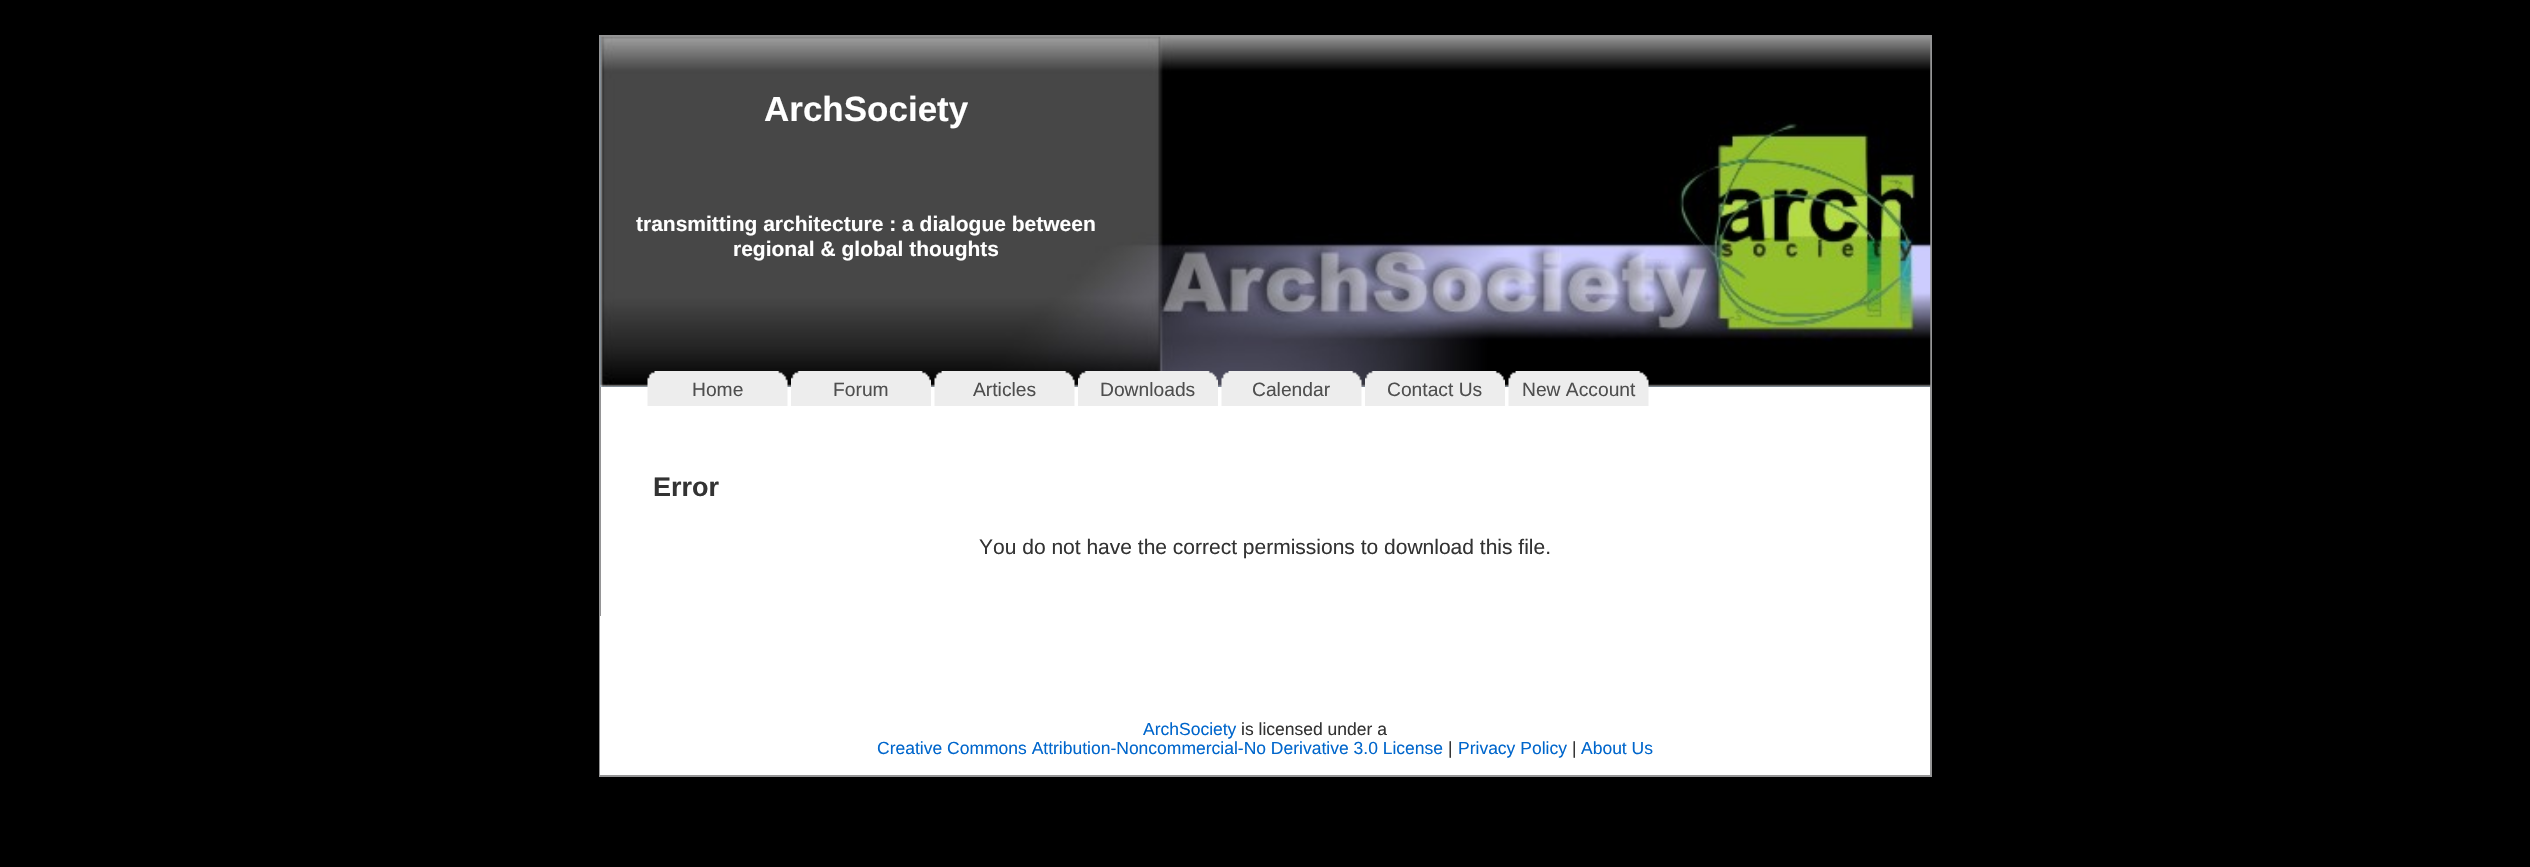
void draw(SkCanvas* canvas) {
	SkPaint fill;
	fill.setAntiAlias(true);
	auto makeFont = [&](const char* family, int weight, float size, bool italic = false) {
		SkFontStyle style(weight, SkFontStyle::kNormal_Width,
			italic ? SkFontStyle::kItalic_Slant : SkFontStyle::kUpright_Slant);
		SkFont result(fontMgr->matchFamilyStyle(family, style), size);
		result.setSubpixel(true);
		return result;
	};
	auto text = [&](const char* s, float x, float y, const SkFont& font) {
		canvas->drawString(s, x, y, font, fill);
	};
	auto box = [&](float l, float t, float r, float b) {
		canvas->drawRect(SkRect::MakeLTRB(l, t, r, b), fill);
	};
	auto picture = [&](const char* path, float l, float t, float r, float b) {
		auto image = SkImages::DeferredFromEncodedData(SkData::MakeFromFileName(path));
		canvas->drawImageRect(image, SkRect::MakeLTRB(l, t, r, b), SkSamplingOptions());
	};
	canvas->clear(0xFF000000);
	fill.setColor(0xFFFFFFFF);
	box(601, 387, 1930, 616);
	fill.setStyle(SkPaint::kStroke_Style);
	fill.setStrokeWidth(2);
	fill.setColor(0xFF959596);
	canvas->drawRect(SkRect::MakeLTRB(600, 36, 1931, 776), fill);
	fill.setStyle(SkPaint::kFill_Style);
	fill.setColor(0xFF73A0C5);
	box(600, 37, 1930, 387);
	picture("image0.png", 600, 36, 1931, 387);
	picture("image1.png", 647, 371, 788, 406);
	picture("image2.png", 791, 371, 931, 406);
	picture("image3.png", 934, 371, 1075, 406);
	picture("image4.png", 1078, 371, 1218, 406);
	picture("image5.png", 1221, 371, 1362, 406);
	picture("image6.png", 1365, 371, 1505, 406);
	picture("image7.png", 1508, 371, 1649, 406);
	fill.setColor(0xFFFFFFFF);
	box(600, 616, 1930, 775);
	auto font1 = makeFont("Liberation Sans", 700, 35);
	text("ArchSociety", 764, 121, font1);
	auto font2 = makeFont("Liberation Sans", 700, 21);
	text("transmitting architecture : a dialogue between", 636, 231, font2);
	text("regional & global thoughts", 733, 256, font2);
	auto font3 = makeFont("Liberation Sans", 400, 19.25f);
	fill.setColor(0xFF4E4E4E);
	text("Home", 692, 396, font3);
	text("Forum", 833, 396, font3);
	text("Articles", 973, 396, font3);
	text("Downloads", 1100, 396, font3);
	text("Calendar", 1252, 396, font3);
	text("Contact Us", 1387, 396, font3);
	text("New Account", 1522, 396, font3);
	auto font4 = makeFont("Liberation Sans", 700, 27);
	fill.setColor(0xFF333333);
	text("Error", 653, 496, font4);
	auto font5 = makeFont("Liberation Sans", 400, 21);
	text("You do not have the correct permissions to download this file.", 979, 554, font5);
	auto font6 = makeFont("Liberation Sans", 400, 17.5f);
	fill.setColor(0xFF0066CC);
	text("ArchSociety", 1143, 735, font6);
	fill.setColor(0xFF333333);
	text("is licensed under a", 1241, 735, font6);
	fill.setColor(0xFF0066CC);
	text("Creative Commons Attribution-Noncommercial-No Derivative 3.0 License", 877, 754, font6);
	fill.setColor(0xFF333333);
	text("|", 1448, 754, font6);
	fill.setColor(0xFF0066CC);
	text("Privacy Policy", 1458, 754, font6);
	fill.setColor(0xFF333333);
	text("|", 1572, 754, font6);
	fill.setColor(0xFF0066CC);
	text("About Us", 1581, 754, font6);
}
